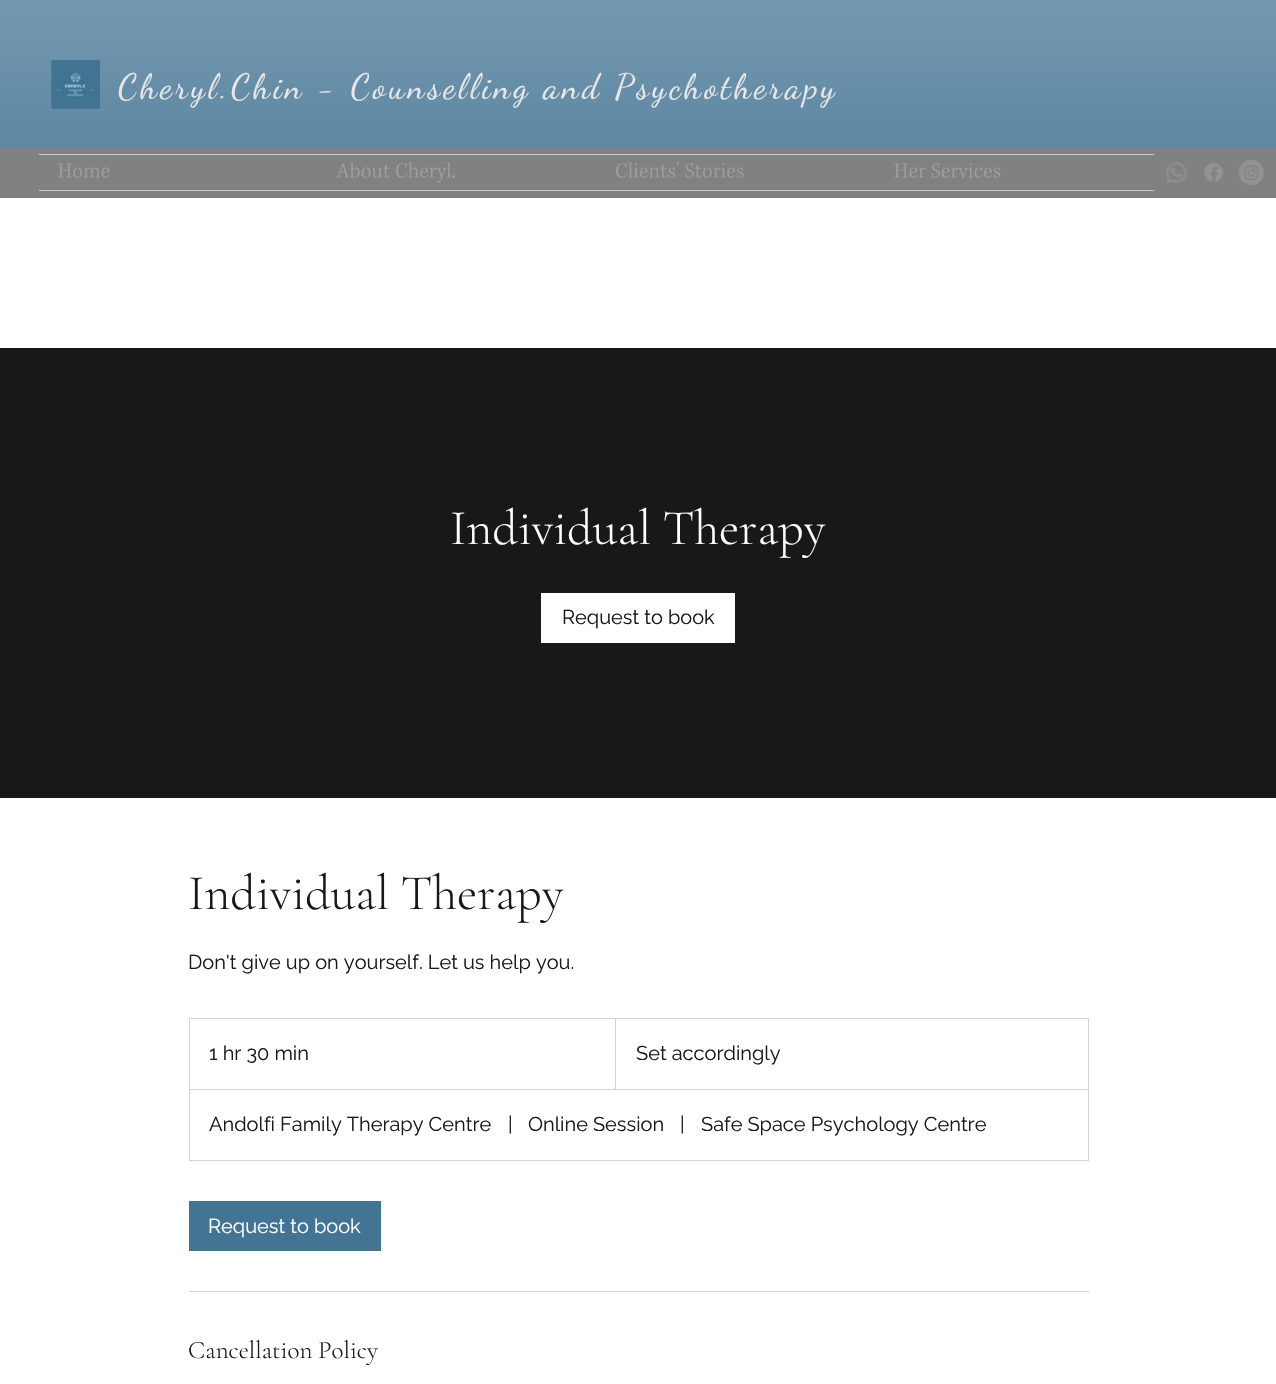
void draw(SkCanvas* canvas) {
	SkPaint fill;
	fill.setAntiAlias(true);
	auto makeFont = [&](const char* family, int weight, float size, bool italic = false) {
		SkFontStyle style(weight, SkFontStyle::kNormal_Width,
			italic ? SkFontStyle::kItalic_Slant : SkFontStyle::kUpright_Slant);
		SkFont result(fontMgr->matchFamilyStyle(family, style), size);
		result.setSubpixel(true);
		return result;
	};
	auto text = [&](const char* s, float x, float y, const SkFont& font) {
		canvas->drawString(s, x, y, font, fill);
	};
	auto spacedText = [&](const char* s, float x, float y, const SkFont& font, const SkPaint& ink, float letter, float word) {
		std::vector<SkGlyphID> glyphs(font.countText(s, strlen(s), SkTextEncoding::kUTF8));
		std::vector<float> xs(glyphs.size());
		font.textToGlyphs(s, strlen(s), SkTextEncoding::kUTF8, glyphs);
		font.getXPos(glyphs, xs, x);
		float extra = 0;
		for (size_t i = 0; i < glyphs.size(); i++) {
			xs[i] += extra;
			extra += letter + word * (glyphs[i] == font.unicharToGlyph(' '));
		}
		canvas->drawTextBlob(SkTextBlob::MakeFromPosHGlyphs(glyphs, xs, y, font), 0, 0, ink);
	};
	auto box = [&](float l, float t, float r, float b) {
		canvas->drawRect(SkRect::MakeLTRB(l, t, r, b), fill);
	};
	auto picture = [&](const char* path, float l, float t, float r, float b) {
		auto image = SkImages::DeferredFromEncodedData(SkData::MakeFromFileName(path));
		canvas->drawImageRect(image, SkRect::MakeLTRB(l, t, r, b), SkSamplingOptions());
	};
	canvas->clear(0xFFFFFFFF);
	fill.setColor(0xFF447494);
	box(0, 0, 1276, 148);
	picture("image0.png", 0, 0, 1276, 148);
	picture("image1.png", 51, 60, 100, 109);
	fill.setColor(0xFF818181);
	box(0, 148, 1276, 198);
	fill.setColor(0xFFCACACA);
	box(39, 154, 1154, 155);
	box(39, 190, 1154, 191);
	picture("image2.png", 58, 163, 110, 178);
	picture("image3.png", 336, 162, 455, 183);
	picture("image4.png", 616, 161, 744, 178);
	picture("image5.png", 894, 163, 1001, 178);
	picture("image6.png", 1166, 162, 1187, 183);
	picture("image7.png", 1204, 163, 1224, 182);
	picture("image8.png", 1238, 160, 1264, 185);
	fill.setColor(0xFF181818);
	box(0, 348, 1276, 798);
	fill.setColor(0xFFFFFFFF);
	box(541, 593, 735, 643);
	fill.setStyle(SkPaint::kStroke_Style);
	fill.setStrokeWidth(1);
	fill.setColor(0xFFD1D1D1);
	canvas->drawRect(SkRect::MakeLTRB(189.5f, 1018.5f, 1088.5f, 1160.5f), fill);
	fill.setStyle(SkPaint::kFill_Style);
	canvas->drawPath(SkPathBuilder().moveTo(615, 1089).lineTo(615, 1018).lineTo(616, 1019).lineTo(616, 1089).close().detach(), fill);
	canvas->drawPath(SkPathBuilder().moveTo(189, 1089).lineTo(1088, 1089).lineTo(1088, 1090).lineTo(190, 1090).close().detach(), fill);
	fill.setColor(0xFF447494);
	box(189, 1201, 381, 1251);
	fill.setColor(0xFFD1D1D1);
	box(189, 1291, 1089, 1292);
	auto font1 = makeFont("Dancing Script", 400, 35);
	fill.setColor(0xFFE7E7E7);
	spacedText("Cheryl.Chin - Counselling and Psychotherapy", 118, 98, font1, fill, 3.5f, 0);
	auto font2 = makeFont("Cormorant Garamond", 300, 50);
	fill.setColor(0xFFFFFFFF);
	text("Individual Therapy", 450, 544, font2);
	auto font3 = makeFont("Raleway", 400, 20);
	fill.setColor(0xFF181818);
	text("Request to book", 562, 624, font3);
	text("Individual Therapy", 188, 909, font2);
	text("Don't give up on yourself. Let us help you.", 188, 969, font3);
	text("1 hr 30 min", 209, 1060, font3);
	text("Set accordingly", 636, 1060, font3);
	text("Andolfi Family Therapy Centre", 209, 1131, font3);
	text("|", 508, 1131, font3);
	text("Online Session", 528, 1131, font3);
	text("|", 680, 1131, font3);
	text("Safe Space Psychology Centre", 701, 1131, font3);
	fill.setColor(0xFFFFFFFF);
	text("Request to book", 208, 1233, font3);
	auto font4 = makeFont("Cormorant Garamond", 300, 25);
	fill.setColor(0xFF181818);
	text("Cancellation Policy", 188, 1358, font4);
}
